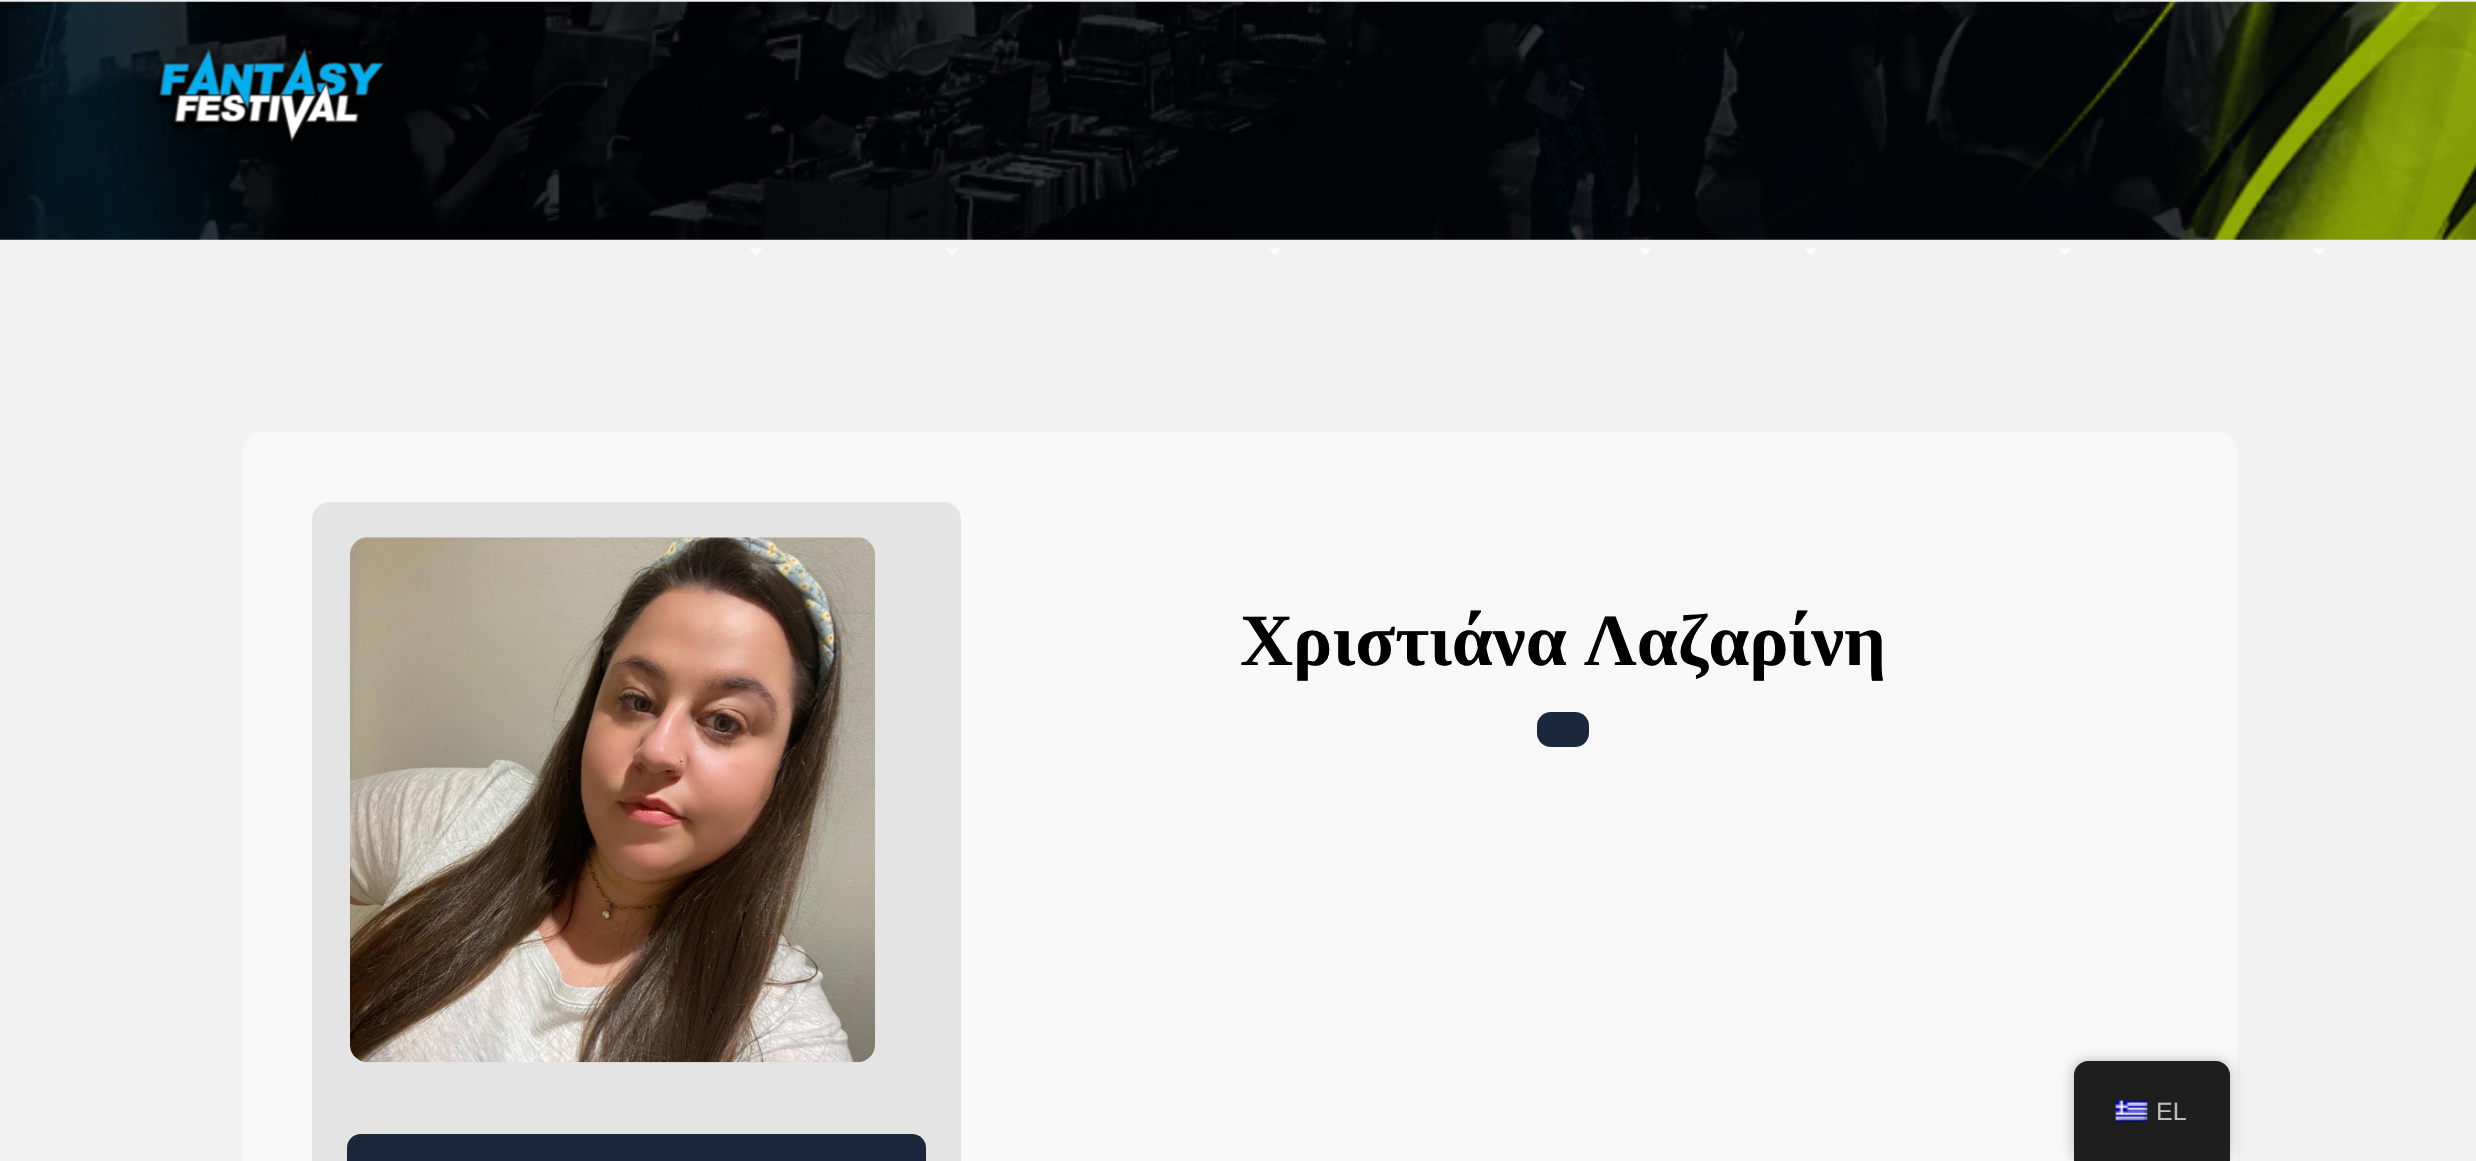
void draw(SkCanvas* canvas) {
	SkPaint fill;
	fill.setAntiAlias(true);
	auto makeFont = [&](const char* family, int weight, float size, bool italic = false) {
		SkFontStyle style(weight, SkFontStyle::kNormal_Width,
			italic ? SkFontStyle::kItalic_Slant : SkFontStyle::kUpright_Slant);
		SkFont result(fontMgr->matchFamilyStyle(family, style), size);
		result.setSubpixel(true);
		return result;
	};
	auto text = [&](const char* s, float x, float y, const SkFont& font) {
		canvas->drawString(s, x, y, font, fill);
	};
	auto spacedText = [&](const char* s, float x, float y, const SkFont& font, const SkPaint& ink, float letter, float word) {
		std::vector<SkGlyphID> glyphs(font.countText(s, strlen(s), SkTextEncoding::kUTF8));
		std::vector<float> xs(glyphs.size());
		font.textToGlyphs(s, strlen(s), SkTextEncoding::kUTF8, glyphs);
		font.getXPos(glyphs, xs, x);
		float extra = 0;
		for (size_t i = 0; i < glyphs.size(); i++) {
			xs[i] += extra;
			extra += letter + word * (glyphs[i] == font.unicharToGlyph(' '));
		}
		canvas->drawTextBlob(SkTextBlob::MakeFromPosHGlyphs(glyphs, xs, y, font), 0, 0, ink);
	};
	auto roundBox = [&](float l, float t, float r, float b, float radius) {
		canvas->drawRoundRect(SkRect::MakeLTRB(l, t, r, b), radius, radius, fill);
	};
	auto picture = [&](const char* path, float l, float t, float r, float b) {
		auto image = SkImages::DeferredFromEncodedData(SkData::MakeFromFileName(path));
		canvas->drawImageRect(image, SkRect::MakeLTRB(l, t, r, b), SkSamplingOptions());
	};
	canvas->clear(0xFFF1F1F1);
	picture("image1.png", 0, 1, 2476, 240);
	picture("image0.png", 155, 48, 384, 144);
	fill.setColor(0xFFFCFCFC);
	canvas->drawPath(SkPathBuilder().moveTo(749, 248.5f).lineTo(763, 248.5f).lineTo(756, 255.5f).close().detach(), fill);
	canvas->drawPath(SkPathBuilder().moveTo(945, 248.5f).lineTo(959, 248.5f).lineTo(952, 255.5f).close().detach(), fill);
	canvas->drawPath(SkPathBuilder().moveTo(1267, 248.5f).lineTo(1281, 248.5f).lineTo(1274, 255.5f).close().detach(), fill);
	canvas->drawPath(SkPathBuilder().moveTo(1638, 248.5f).lineTo(1652, 248.5f).lineTo(1645, 255.5f).close().detach(), fill);
	canvas->drawPath(SkPathBuilder().moveTo(1804, 248.5f).lineTo(1818, 248.5f).lineTo(1811, 255.5f).close().detach(), fill);
	canvas->drawPath(SkPathBuilder().moveTo(2058, 248.5f).lineTo(2072, 248.5f).lineTo(2065, 255.5f).close().detach(), fill);
	canvas->drawPath(SkPathBuilder().moveTo(2312, 248.5f).lineTo(2326, 248.5f).lineTo(2319, 255.5f).close().detach(), fill);
	fill.setColor(0xFFF8F8F8);
	roundBox(242, 432, 2237, 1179, 18);
	fill.setColor(0xFFE4E4E4);
	roundBox(312, 502, 961, 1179, 18);
	picture("image2.png", 350, 537, 875, 1063);
	fill.setColor(0xFF1B273D);
	roundBox(347, 1134, 926, 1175, 14);
	roundBox(1537, 712, 1589, 747, 14);
	fill.setColor(0x40000000);
	fill.setMaskFilter(SkMaskFilter::MakeBlur(kNormal_SkBlurStyle, 7));
	canvas->drawRoundRect(SkRect::MakeLTRB(2074, 1061, 2230, 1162), 14, 14, fill);
	fill.setMaskFilter(nullptr);
	fill.setColor(0xFF1E1E1E);
	canvas->drawPath(SkPathBuilder().moveTo(2088, 1061).lineTo(2216, 1061).cubicTo(2223.5f, 1061, 2230, 1067.5f, 2230, 1075).lineTo(2230, 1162).lineTo(2074, 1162).lineTo(2074, 1075).cubicTo(2074, 1067.5f, 2080.5f, 1061, 2088, 1061).close().detach(), fill);
	picture("image3.png", 2115, 1100, 2148, 1122);
	auto font1 = makeFont("Liberation Serif", 700, 73.5f);
	fill.setColor(0xFF000000);
	spacedText("Χριστιάνα Λαζαρίνη", 1240, 665, font1, fill, 0, -1);
	auto font2 = makeFont("Liberation Sans", 400, 25);
	fill.setColor(0xFFBDBDBD);
	text("EL", 2156, 1120, font2);
}
